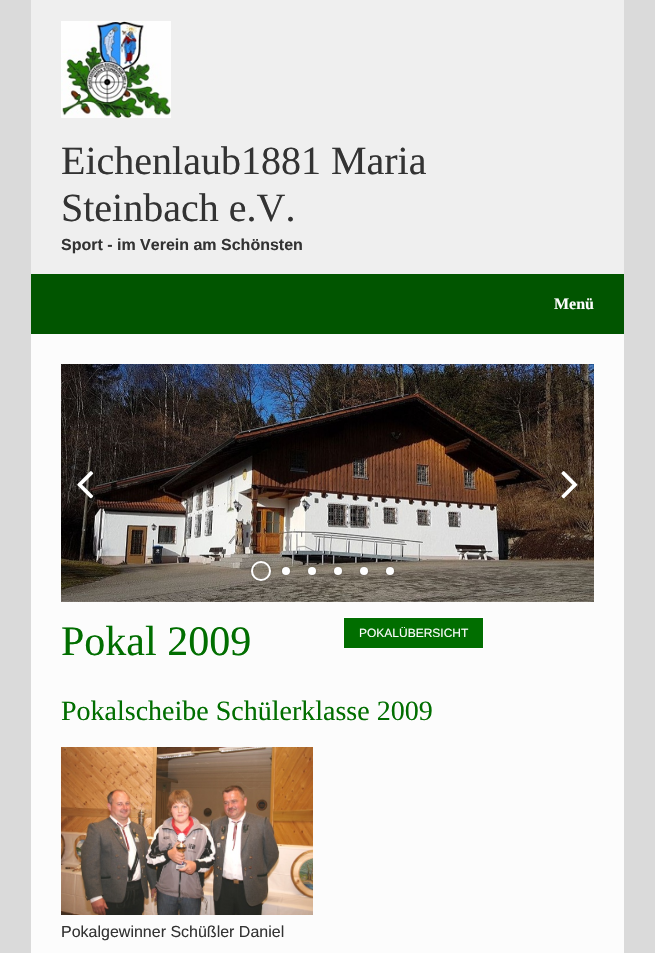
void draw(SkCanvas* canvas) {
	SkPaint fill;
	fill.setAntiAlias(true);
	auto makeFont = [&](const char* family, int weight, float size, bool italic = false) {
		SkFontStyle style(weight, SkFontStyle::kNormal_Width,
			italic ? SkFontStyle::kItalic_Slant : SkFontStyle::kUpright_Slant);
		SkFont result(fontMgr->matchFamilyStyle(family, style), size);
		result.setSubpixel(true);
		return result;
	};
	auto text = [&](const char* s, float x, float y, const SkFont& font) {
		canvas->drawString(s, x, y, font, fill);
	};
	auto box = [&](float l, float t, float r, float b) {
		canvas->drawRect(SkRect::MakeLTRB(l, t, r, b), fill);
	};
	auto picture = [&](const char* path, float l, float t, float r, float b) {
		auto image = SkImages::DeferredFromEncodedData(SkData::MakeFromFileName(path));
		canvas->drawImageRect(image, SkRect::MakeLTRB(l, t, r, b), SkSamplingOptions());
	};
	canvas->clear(0xFFDADADA);
	fill.setColor(0xFFEFEFEF);
	box(31, 0, 624, 274);
	fill.setColor(0xFF015500);
	box(31, 274, 624, 334);
	picture("image0.png", 61, 21, 171, 118);
	fill.setColor(0xFFFCFCFC);
	box(31, 334, 624, 953);
	picture("image1.png", 61, 364, 594, 602);
	picture("image2.png", 77, 471, 94, 499);
	picture("image3.png", 561, 471, 578, 499);
	canvas->save();
	canvas->clipPath(SkPathBuilder(SkPathFillType::kEvenOdd).moveTo(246, 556).lineTo(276, 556).lineTo(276, 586).lineTo(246, 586).close().moveTo(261, 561).cubicTo(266.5f, 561, 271, 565.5f, 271, 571).cubicTo(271, 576.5f, 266.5f, 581, 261, 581).cubicTo(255.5f, 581, 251, 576.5f, 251, 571).cubicTo(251, 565.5f, 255.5f, 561, 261, 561).close().detach(), true);
	fill.setColor(0x26000000);
	fill.setMaskFilter(SkMaskFilter::MakeBlur(kNormal_SkBlurStyle, 1));
	canvas->drawRoundRect(SkRect::MakeLTRB(250, 560, 272, 582), 11, 11, fill);
	fill.setMaskFilter(nullptr);
	canvas->restore();
	fill.setStyle(SkPaint::kStroke_Style);
	fill.setStrokeWidth(2);
	fill.setColor(0xFFFFFFFF);
	canvas->drawCircle(261, 571, 9, fill);
	fill.setStyle(SkPaint::kFill_Style);
	fill.setColor(0x26000000);
	fill.setMaskFilter(SkMaskFilter::MakeBlur(kNormal_SkBlurStyle, 1));
	canvas->drawRoundRect(SkRect::MakeLTRB(281, 566, 291, 576), 5, 5, fill);
	fill.setMaskFilter(nullptr);
	fill.setColor(0xFFFFFFFF);
	canvas->drawCircle(286, 571, 4, fill);
	fill.setColor(0x26000000);
	fill.setMaskFilter(SkMaskFilter::MakeBlur(kNormal_SkBlurStyle, 1));
	canvas->drawRoundRect(SkRect::MakeLTRB(307, 566, 317, 576), 5, 5, fill);
	fill.setMaskFilter(nullptr);
	fill.setColor(0xFFFFFFFF);
	canvas->drawCircle(312, 571, 4, fill);
	fill.setColor(0x26000000);
	fill.setMaskFilter(SkMaskFilter::MakeBlur(kNormal_SkBlurStyle, 1));
	canvas->drawRoundRect(SkRect::MakeLTRB(333, 566, 343, 576), 5, 5, fill);
	fill.setMaskFilter(nullptr);
	fill.setColor(0xFFFFFFFF);
	canvas->drawCircle(338, 571, 4, fill);
	fill.setColor(0x26000000);
	fill.setMaskFilter(SkMaskFilter::MakeBlur(kNormal_SkBlurStyle, 1));
	canvas->drawRoundRect(SkRect::MakeLTRB(359, 566, 369, 576), 5, 5, fill);
	fill.setMaskFilter(nullptr);
	fill.setColor(0xFFFFFFFF);
	canvas->drawCircle(364, 571, 4, fill);
	fill.setColor(0x26000000);
	fill.setMaskFilter(SkMaskFilter::MakeBlur(kNormal_SkBlurStyle, 1));
	canvas->drawRoundRect(SkRect::MakeLTRB(385, 566, 395, 576), 5, 5, fill);
	fill.setMaskFilter(nullptr);
	fill.setColor(0xFFFFFFFF);
	canvas->drawCircle(390, 571, 4, fill);
	fill.setColor(0xFF016E00);
	canvas->drawRect(SkRect::MakeLTRB(343.5f, 617.5f, 483.5f, 648.5f), fill);
	fill.setStyle(SkPaint::kStroke_Style);
	fill.setStrokeWidth(1);
	fill.setColor(0xFFFFFFFF);
	canvas->drawRect(SkRect::MakeLTRB(343.5f, 617.5f, 483.5f, 648.5f), fill);
	picture("image4.png", 61, 747, 313, 915);
	auto font1 = makeFont("Liberation Serif", 400, 40);
	fill.setStyle(SkPaint::kFill_Style);
	fill.setColor(0xFF333333);
	text("Eichenlaub1881 Maria", 61, 174, font1);
	text("Steinbach e.V.", 61, 221, font1);
	auto font2 = makeFont("Liberation Sans", 700, 16);
	text("Sport - im Verein am Schönsten", 61, 250, font2);
	auto font3 = makeFont("Liberation Serif", 700, 16);
	fill.setColor(0xFFFCFCFC);
	text("Menü", 554, 309, font3);
	auto font4 = makeFont("Liberation Serif", 400, 42);
	fill.setColor(0xFF016E00);
	text("Pokal 2009", 61, 655, font4);
	auto font5 = makeFont("Liberation Sans", 400, 12);
	fill.setColor(0xFFFCFCFC);
	text("POKALÜBERSICHT", 359, 637, font5);
	auto font6 = makeFont("Liberation Serif", 400, 28);
	fill.setColor(0xFF016E00);
	text("Pokalscheibe Schülerklasse 2009", 61, 720, font6);
	auto font7 = makeFont("Liberation Sans", 400, 16);
	fill.setColor(0xFF333333);
	text("Pokalgewinner Schüßler Daniel", 61, 937, font7);
}
